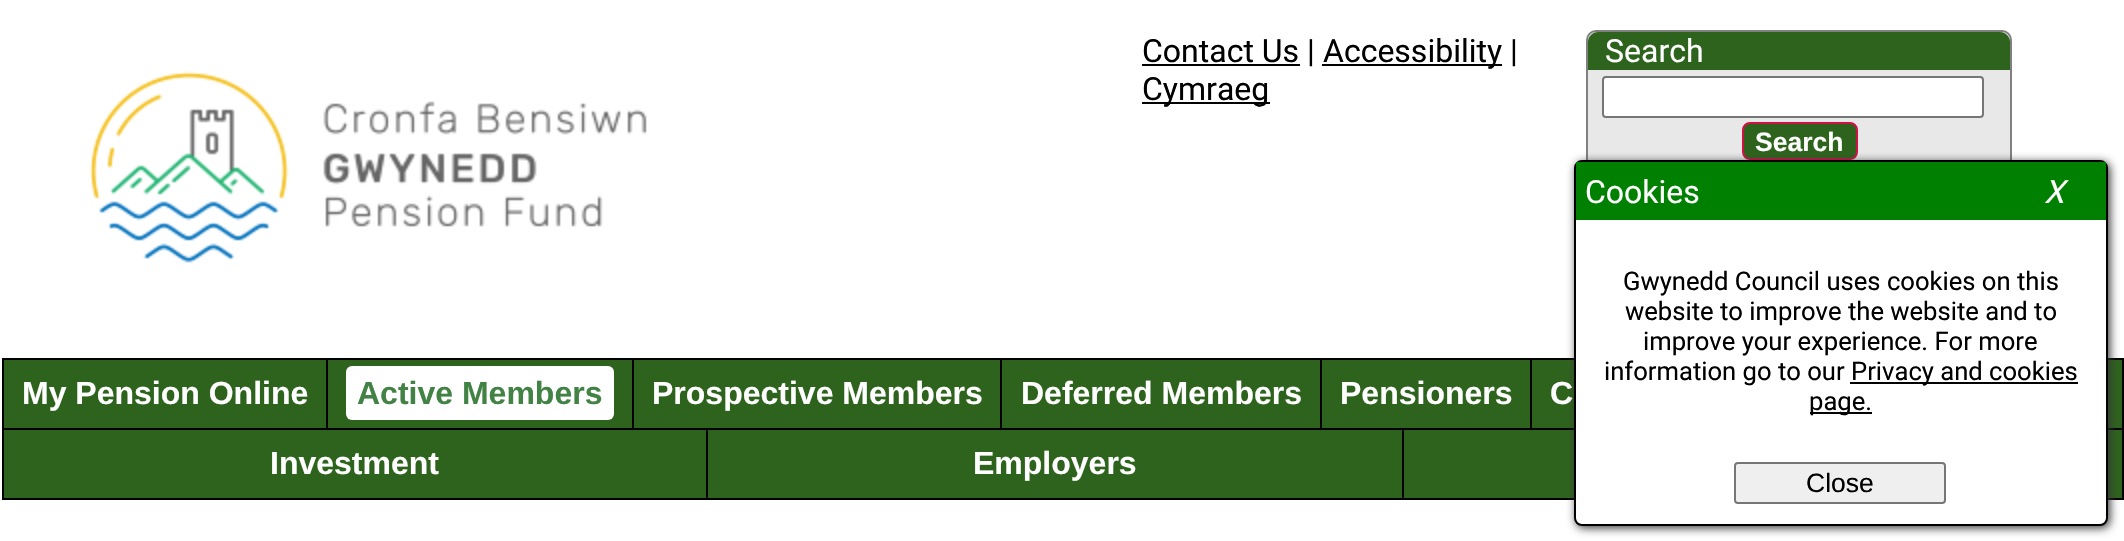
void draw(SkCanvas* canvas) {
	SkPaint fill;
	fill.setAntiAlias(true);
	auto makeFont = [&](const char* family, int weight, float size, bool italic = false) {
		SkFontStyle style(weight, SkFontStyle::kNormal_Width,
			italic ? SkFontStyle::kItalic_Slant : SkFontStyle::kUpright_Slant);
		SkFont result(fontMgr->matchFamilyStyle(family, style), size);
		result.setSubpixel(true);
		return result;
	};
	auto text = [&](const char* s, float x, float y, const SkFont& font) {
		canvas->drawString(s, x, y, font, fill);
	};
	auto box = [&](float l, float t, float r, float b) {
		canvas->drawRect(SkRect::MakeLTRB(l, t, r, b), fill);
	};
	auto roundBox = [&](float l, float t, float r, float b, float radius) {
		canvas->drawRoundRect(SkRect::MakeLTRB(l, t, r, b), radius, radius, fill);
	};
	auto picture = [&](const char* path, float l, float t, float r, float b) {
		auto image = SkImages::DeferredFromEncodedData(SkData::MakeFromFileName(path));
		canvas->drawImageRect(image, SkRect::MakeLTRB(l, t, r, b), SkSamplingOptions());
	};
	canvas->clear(0xFFFFFFFF);
	picture("image0.png", 89, 71, 647, 263);
	fill.setColor(0xFF000000);
	box(1142, 64, 1300, 66);
	box(1322, 64, 1502, 66);
	box(1142, 102, 1270, 104);
	fill.setColor(0xFFE8E8E8);
	canvas->drawPath(SkPathBuilder().moveTo(1596, 31).lineTo(2002, 31).cubicTo(2007, 31, 2011, 35, 2011, 40).lineTo(2011, 165).lineTo(1587, 165).lineTo(1587, 40).cubicTo(1587, 35, 1591, 31, 1596, 31).close().detach(), fill);
	fill.setStyle(SkPaint::kStroke_Style);
	fill.setStrokeWidth(2);
	fill.setColor(0xFF808080);
	canvas->drawPath(SkPathBuilder().moveTo(1596, 31).lineTo(2002, 31).cubicTo(2007, 31, 2011, 35, 2011, 40).lineTo(2011, 165).lineTo(1587, 165).lineTo(1587, 40).cubicTo(1587, 35, 1591, 31, 1596, 31).close().detach(), fill);
	fill.setStyle(SkPaint::kFill_Style);
	fill.setColor(0xFF2E631D);
	canvas->drawPath(SkPathBuilder().moveTo(1598, 32).lineTo(2000, 32).cubicTo(2005.5f, 32, 2010, 36.5f, 2010, 42).lineTo(2010, 70).lineTo(1588, 70).lineTo(1588, 42).cubicTo(1588, 36.5f, 1592.5f, 32, 1598, 32).close().detach(), fill);
	fill.setColor(0xFFFFFFFF);
	canvas->drawRoundRect(SkRect::MakeLTRB(1603, 77, 1983, 117), 3, 3, fill);
	fill.setStyle(SkPaint::kStroke_Style);
	fill.setColor(0xFF767676);
	canvas->drawRoundRect(SkRect::MakeLTRB(1603, 77, 1983, 117), 3, 3, fill);
	fill.setStyle(SkPaint::kFill_Style);
	fill.setColor(0xFF2E631D);
	canvas->drawRoundRect(SkRect::MakeLTRB(1743, 123, 1857, 159), 7, 7, fill);
	fill.setStyle(SkPaint::kStroke_Style);
	fill.setColor(0xFFCF1243);
	canvas->drawRoundRect(SkRect::MakeLTRB(1743, 123, 1857, 159), 7, 7, fill);
	fill.setStyle(SkPaint::kFill_Style);
	fill.setColor(0xFF2E631D);
	canvas->drawRect(SkRect::MakeLTRB(3, 359, 327, 429), fill);
	fill.setStyle(SkPaint::kStroke_Style);
	fill.setColor(0xFF000000);
	canvas->drawRect(SkRect::MakeLTRB(3, 359, 327, 429), fill);
	fill.setStyle(SkPaint::kFill_Style);
	fill.setColor(0xFF2E631D);
	canvas->drawRect(SkRect::MakeLTRB(327, 359, 633, 429), fill);
	fill.setStyle(SkPaint::kStroke_Style);
	fill.setColor(0xFF000000);
	canvas->drawRect(SkRect::MakeLTRB(327, 359, 633, 429), fill);
	fill.setStyle(SkPaint::kFill_Style);
	fill.setColor(0xFFFFFFFF);
	roundBox(346, 366, 614, 420, 6);
	fill.setColor(0xFF2E631D);
	canvas->drawRect(SkRect::MakeLTRB(633, 359, 1001, 429), fill);
	fill.setStyle(SkPaint::kStroke_Style);
	fill.setColor(0xFF000000);
	canvas->drawRect(SkRect::MakeLTRB(633, 359, 1001, 429), fill);
	fill.setStyle(SkPaint::kFill_Style);
	fill.setColor(0xFF2E631D);
	canvas->drawRect(SkRect::MakeLTRB(1001, 359, 1321, 429), fill);
	fill.setStyle(SkPaint::kStroke_Style);
	fill.setColor(0xFF000000);
	canvas->drawRect(SkRect::MakeLTRB(1001, 359, 1321, 429), fill);
	fill.setStyle(SkPaint::kFill_Style);
	fill.setColor(0xFF2E631D);
	canvas->drawRect(SkRect::MakeLTRB(1321, 359, 1531, 429), fill);
	fill.setStyle(SkPaint::kStroke_Style);
	fill.setColor(0xFF000000);
	canvas->drawRect(SkRect::MakeLTRB(1321, 359, 1531, 429), fill);
	fill.setStyle(SkPaint::kFill_Style);
	fill.setColor(0xFF2E631D);
	box(1532, 360, 1574, 428);
	fill.setStyle(SkPaint::kStroke_Style);
	fill.setColor(0xFF000000);
	canvas->drawRect(SkRect::MakeLTRB(1531, 359, 1745, 429), fill);
	fill.setStyle(SkPaint::kFill_Style);
	fill.setColor(0xFF2E631D);
	box(2108, 360, 2122, 428);
	fill.setStyle(SkPaint::kStroke_Style);
	fill.setColor(0xFF000000);
	canvas->drawRect(SkRect::MakeLTRB(1745, 359, 2123, 429), fill);
	fill.setStyle(SkPaint::kFill_Style);
	fill.setColor(0xFF2E631D);
	canvas->drawRect(SkRect::MakeLTRB(3, 429, 707, 499), fill);
	fill.setStyle(SkPaint::kStroke_Style);
	fill.setColor(0xFF000000);
	canvas->drawRect(SkRect::MakeLTRB(3, 429, 707, 499), fill);
	fill.setStyle(SkPaint::kFill_Style);
	fill.setColor(0xFF2E631D);
	canvas->drawRect(SkRect::MakeLTRB(707, 429, 1403, 499), fill);
	fill.setStyle(SkPaint::kStroke_Style);
	fill.setColor(0xFF000000);
	canvas->drawRect(SkRect::MakeLTRB(707, 429, 1403, 499), fill);
	fill.setStyle(SkPaint::kFill_Style);
	fill.setColor(0xFF2E631D);
	canvas->drawRect(SkRect::MakeLTRB(1403, 429, 2123, 499), fill);
	fill.setStyle(SkPaint::kStroke_Style);
	fill.setColor(0xFF000000);
	canvas->drawRect(SkRect::MakeLTRB(1403, 429, 2123, 499), fill);
	fill.setStyle(SkPaint::kFill_Style);
	fill.setColor(0xFF363636);
	fill.setMaskFilter(SkMaskFilter::MakeBlur(kNormal_SkBlurStyle, 5));
	canvas->drawRoundRect(SkRect::MakeLTRB(1576, 162, 2110, 528), 8, 8, fill);
	fill.setMaskFilter(nullptr);
	fill.setColor(0xFFFFFFFF);
	canvas->drawRoundRect(SkRect::MakeLTRB(1575, 161, 2107, 525), 7, 7, fill);
	fill.setStyle(SkPaint::kStroke_Style);
	fill.setColor(0xFF000000);
	canvas->drawRoundRect(SkRect::MakeLTRB(1575, 161, 2107, 525), 7, 7, fill);
	fill.setStyle(SkPaint::kFill_Style);
	fill.setColor(0xFF008000);
	box(1576, 162, 2106, 220);
	fill.setColor(0xFF000000);
	box(1850, 382, 2078, 384);
	box(1810, 412, 1872, 414);
	fill.setColor(0xFFEFEFEF);
	canvas->drawRoundRect(SkRect::MakeLTRB(1735, 463, 1945, 503), 3, 3, fill);
	fill.setStyle(SkPaint::kStroke_Style);
	fill.setColor(0xFF767676);
	canvas->drawRoundRect(SkRect::MakeLTRB(1735, 463, 1945, 503), 3, 3, fill);
	auto font1 = makeFont("Roboto", 400, 32);
	fill.setStyle(SkPaint::kFill_Style);
	fill.setColor(0xFF000000);
	text("Contact Us |", 1142, 62, font1);
	text("Accessibility |", 1323, 62, font1);
	text("Cymraeg", 1142, 100, font1);
	fill.setColor(0xFFFFFFFF);
	text("Search", 1605, 62, font1);
	auto font2 = makeFont("Liberation Sans", 700, 26.5f);
	text("Search", 1755, 151, font2);
	auto font3 = makeFont("Liberation Sans", 700, 32);
	text("My Pension Online", 22, 404, font3);
	fill.setColor(0xFF428345);
	text("Active Members", 357, 404, font3);
	fill.setColor(0xFFFFFFFF);
	text("Prospective Members", 652, 404, font3);
	text("Deferred Members", 1021, 404, font3);
	text("Pensioners", 1340, 404, font3);
	text("C", 1550, 404, font3);
	text("Investment", 270, 474, font3);
	text("Employers", 973, 474, font3);
	text("Cookies", 1585, 203, font1);
	auto font4 = makeFont("Roboto", 400, 32, true);
	text("X", 2044, 203, font4);
	auto font5 = makeFont("Roboto", 400, 25.6f);
	fill.setColor(0xFF000000);
	text("Gwynedd Council uses cookies on this", 1623, 290, font5);
	text("website to improve the website and to", 1625, 320, font5);
	text("improve your experience. For more", 1643, 350, font5);
	text("information go to our", 1604, 380, font5);
	text("Privacy and cookies", 1851, 380, font5);
	text("page.", 1809, 410, font5);
	auto font6 = makeFont("Liberation Sans", 400, 26.5f);
	text("Close", 1806, 492, font6);
}
